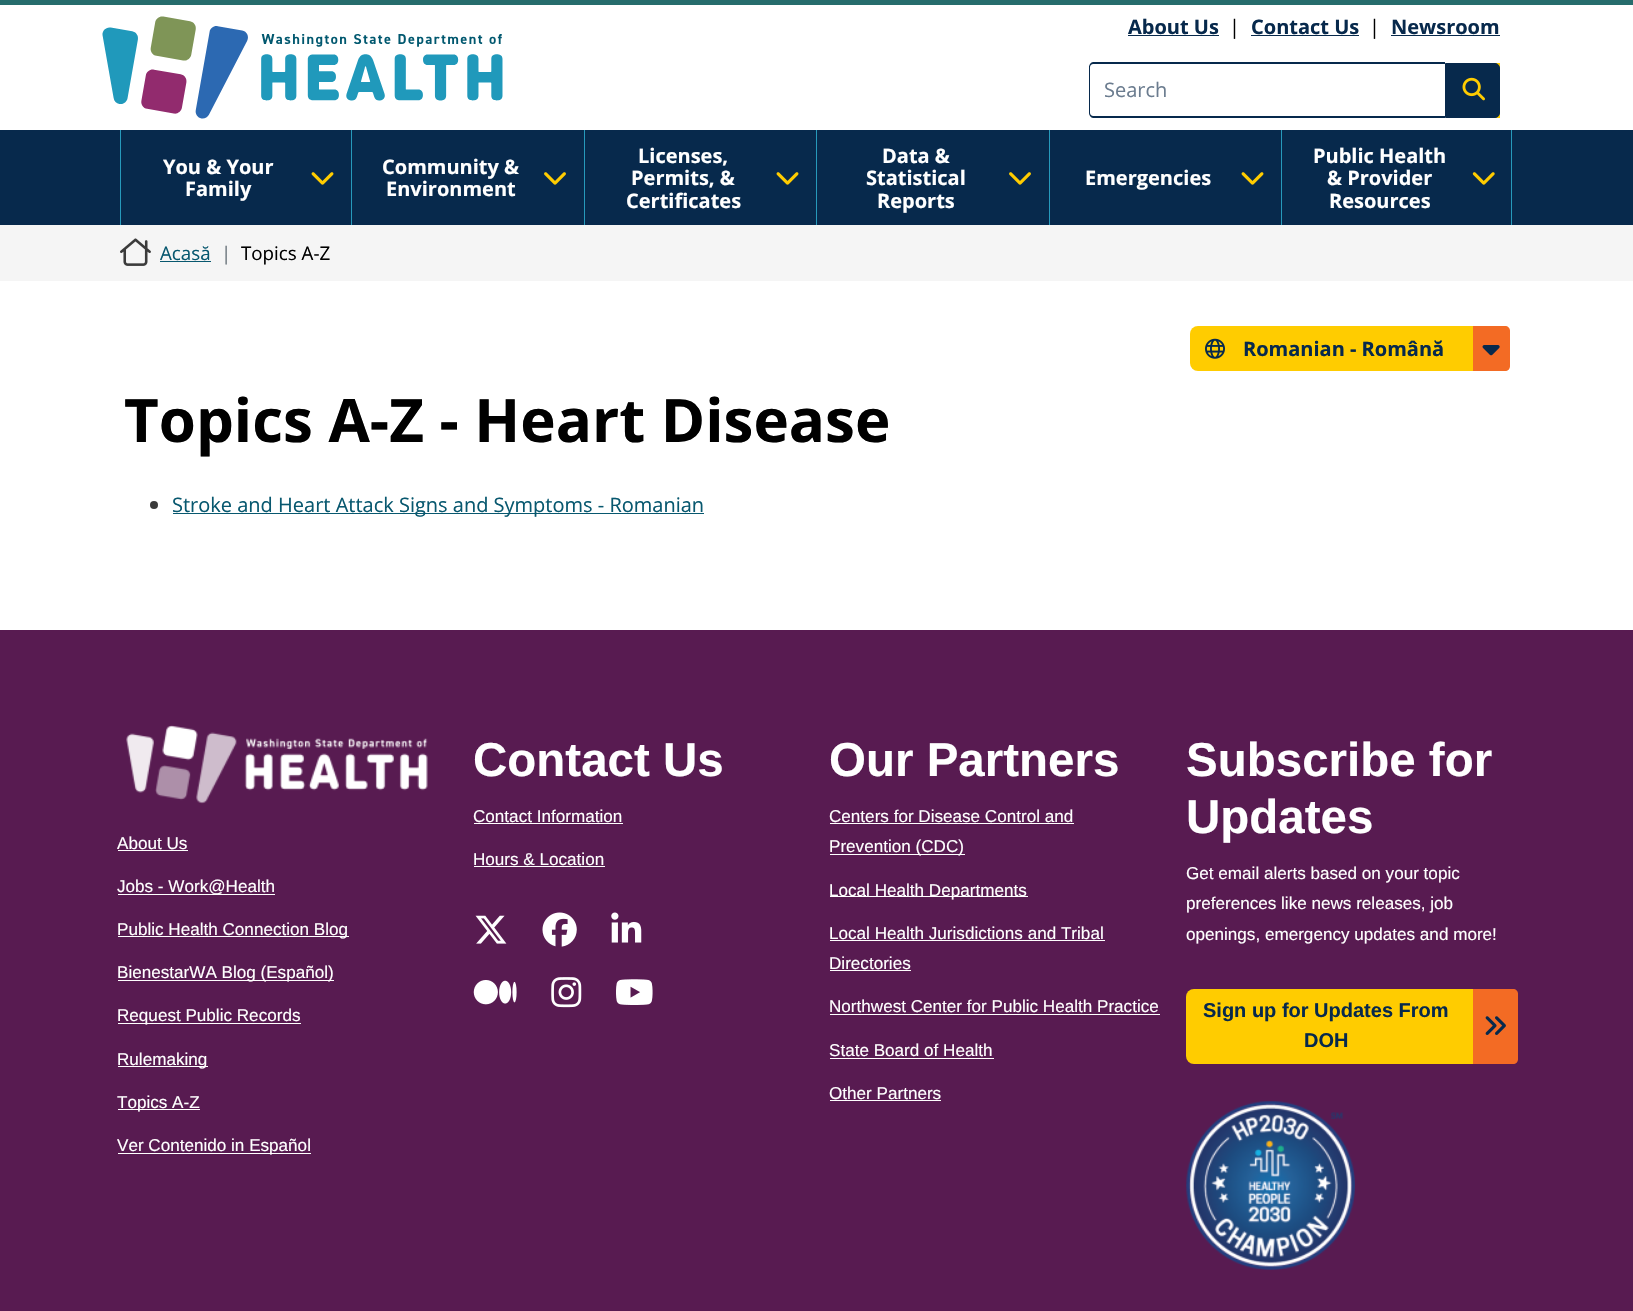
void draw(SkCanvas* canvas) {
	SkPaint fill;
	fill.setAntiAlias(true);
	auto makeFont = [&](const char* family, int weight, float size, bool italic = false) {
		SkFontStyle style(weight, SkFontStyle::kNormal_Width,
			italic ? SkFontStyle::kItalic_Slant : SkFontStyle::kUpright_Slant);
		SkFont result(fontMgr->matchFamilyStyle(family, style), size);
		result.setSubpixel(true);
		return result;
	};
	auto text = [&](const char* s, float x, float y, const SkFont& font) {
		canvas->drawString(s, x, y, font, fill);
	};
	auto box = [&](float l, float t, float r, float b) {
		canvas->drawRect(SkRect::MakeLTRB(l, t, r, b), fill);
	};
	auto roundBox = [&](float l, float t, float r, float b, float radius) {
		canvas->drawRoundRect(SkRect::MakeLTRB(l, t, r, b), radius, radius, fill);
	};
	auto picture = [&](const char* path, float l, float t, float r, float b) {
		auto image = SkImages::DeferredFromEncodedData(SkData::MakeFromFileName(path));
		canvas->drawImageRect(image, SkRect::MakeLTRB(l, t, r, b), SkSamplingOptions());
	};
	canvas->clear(0xFFFFFFFF);
	fill.setColor(0xFF266C6C);
	box(0, 0, 1633, 5);
	picture("image0.png", 102, 16, 503, 119);
	fill.setColor(0xFF07294C);
	box(1128, 35, 1219, 36);
	box(1251, 35, 1359, 36);
	box(1391, 35, 1500, 36);
	canvas->drawPath(SkPathBuilder(SkPathFillType::kEvenOdd).moveTo(1093, 62).lineTo(1445, 62).lineTo(1445, 118).lineTo(1093, 118).cubicTo(1091, 118, 1089, 115, 1089, 113).lineTo(1089, 67).cubicTo(1089, 65, 1091, 62, 1093, 62).close().moveTo(1093, 64).lineTo(1445, 64).lineTo(1445, 116).lineTo(1093, 116).cubicTo(1092, 116, 1090, 115, 1090, 113).lineTo(1090, 67).cubicTo(1090, 65, 1092, 64, 1093, 64).close().detach(), fill);
	fill.setColor(0xFFFFCC00);
	box(1495, 63, 1500, 118);
	fill.setColor(0xFF07294C);
	canvas->drawPath(SkPathBuilder().moveTo(1445.5f, 63.5f).lineTo(1495, 63.5f).cubicTo(1497.5f, 63.5f, 1499.5f, 65.5f, 1499.5f, 68).lineTo(1499.5f, 113).cubicTo(1499.5f, 115.5f, 1497.5f, 117.5f, 1495, 117.5f).lineTo(1445.5f, 117.5f).close().detach(), fill);
	fill.setStyle(SkPaint::kStroke_Style);
	fill.setStrokeWidth(1);
	canvas->drawPath(SkPathBuilder().moveTo(1445.5f, 63.5f).lineTo(1495, 63.5f).cubicTo(1497.5f, 63.5f, 1499.5f, 65.5f, 1499.5f, 68).lineTo(1499.5f, 113).cubicTo(1499.5f, 115.5f, 1497.5f, 117.5f, 1495, 117.5f).lineTo(1445.5f, 117.5f).close().detach(), fill);
	picture("image1.png", 1462, 77, 1485, 101);
	fill.setStyle(SkPaint::kFill_Style);
	box(0, 130, 1633, 225);
	fill.setColor(0xFF2699BB);
	box(120, 130, 121, 225);
	picture("image2.png", 311, 172, 334, 185);
	box(351, 130, 352, 225);
	picture("image3.png", 544, 172, 566, 185);
	box(584, 130, 585, 225);
	picture("image2.png", 776, 172, 799, 185);
	box(816, 130, 817, 225);
	picture("image3.png", 1009, 172, 1031, 185);
	box(1049, 130, 1050, 225);
	picture("image2.png", 1241, 172, 1264, 185);
	box(1281, 130, 1282, 225);
	picture("image4.png", 1472, 172, 1495, 185);
	box(1511, 130, 1512, 225);
	fill.setColor(0xFFF5F5F5);
	box(0, 225, 1633, 281);
	picture("image5.png", 120, 238, 151, 266);
	fill.setColor(0xFF08586F);
	box(160, 261, 211, 262);
	fill.setColor(0xFFFFCC00);
	roundBox(1190, 326, 1510, 371, 8);
	picture("image6.png", 1205, 338, 1225, 359);
	fill.setColor(0xFFF36B24);
	canvas->drawPath(SkPathBuilder().moveTo(1473, 326).lineTo(1505, 326).cubicTo(1508, 326, 1510, 328, 1510, 331).lineTo(1510, 366).cubicTo(1510, 369, 1508, 371, 1505, 371).lineTo(1473, 371).close().detach(), fill);
	picture("image7.png", 1482, 345, 1500, 356);
	fill.setColor(0xFF3B3B3B);
	canvas->drawCircle(154, 505, 4, fill);
	fill.setColor(0xFF08586F);
	box(173, 513, 704, 514);
	fill.setColor(0xFF581B51);
	box(0, 630, 1633, 1311);
	picture("image8.png", 126, 725, 428, 804);
	fill.setColor(0xFFFFFFFF);
	box(118, 850, 188, 851);
	box(118, 894, 275, 895);
	box(118, 936, 349, 937);
	box(118, 980, 334, 981);
	box(118, 1023, 301, 1024);
	box(118, 1066, 208, 1067);
	box(118, 1109, 200, 1110);
	box(118, 1153, 311, 1154);
	box(474, 823, 623, 824);
	box(474, 866, 605, 867);
	picture("image9.png", 475, 915, 507, 944);
	picture("image10.png", 542, 912, 577, 947);
	picture("image11.png", 611, 912, 642, 943);
	picture("image12.png", 473, 980, 517, 1005);
	picture("image13.png", 551, 977, 582, 1008);
	picture("image14.png", 616, 979, 653, 1005);
	box(830, 823, 1074, 824);
	box(830, 854, 965, 855);
	box(830, 896, 1028, 897);
	box(830, 940, 1105, 941);
	box(830, 970, 911, 971);
	box(830, 1014, 1160, 1015);
	box(830, 1058, 994, 1059);
	box(830, 1100, 941, 1101);
	fill.setColor(0xFFFFCC00);
	roundBox(1186, 989, 1518, 1064, 8);
	fill.setColor(0xFFF36B24);
	canvas->drawPath(SkPathBuilder().moveTo(1473, 989).lineTo(1513, 989).cubicTo(1516, 989, 1518, 991, 1518, 994).lineTo(1518, 1059).cubicTo(1518, 1062, 1516, 1064, 1513, 1064).lineTo(1473, 1064).close().detach(), fill);
	picture("image15.png", 1485, 1016, 1506, 1035);
	picture("image16.png", 1186, 1101, 1355, 1270);
	auto font1 = makeFont("Open Sans", 700, 20);
	fill.setColor(0xFF07294C);
	text("About Us", 1128, 34, font1);
	auto font2 = makeFont("Open Sans", 400, 20);
	fill.setColor(0xFF000000);
	text("|", 1229, 34, font2);
	fill.setColor(0xFF07294C);
	text("Contact Us", 1251, 34, font1);
	fill.setColor(0xFF000000);
	text("|", 1369, 34, font2);
	fill.setColor(0xFF07294C);
	text("Newsroom", 1391, 34, font1);
	fill.setColor(0xFF6B7C8F);
	text("Search", 1104, 97, font2);
	fill.setColor(0xFFFFFFFF);
	text("You & Your", 163, 174, font1);
	text("Family", 185, 196, font1);
	text("Community &", 382, 174, font1);
	text("Environment", 386, 196, font1);
	text("Licenses,", 638, 163, font1);
	text("Permits, &", 631, 185, font1);
	text("Certificates", 626, 208, font1);
	text("Data &", 882, 163, font1);
	text("Statistical", 866, 185, font1);
	text("Reports", 877, 208, font1);
	text("Emergencies", 1085, 185, font1);
	text("Public Health", 1313, 163, font1);
	text("& Provider", 1327, 185, font1);
	text("Resources", 1329, 208, font1);
	auto font3 = makeFont("Open Sans", 400, 18.75f);
	fill.setColor(0xFF08586F);
	text("Acasă", 160, 260, font3);
	fill.setColor(0xFF6C757D);
	text("|", 221, 260, font3);
	fill.setColor(0xFF000000);
	text("Topics A-Z", 241, 260, font3);
	fill.setColor(0xFF07294C);
	text("Romanian - Română", 1243, 356, font1);
	auto font4 = makeFont("Open Sans", 700, 60);
	fill.setColor(0xFF000000);
	text("Topics A-Z - Heart Disease", 124, 442, font4);
	fill.setColor(0xFF08586F);
	text("Stroke and Heart Attack Signs and Symptoms - Romanian", 172, 512, font2);
	auto font5 = makeFont("Liberation Sans", 400, 17.1f);
	fill.setColor(0xFFFFFFFF);
	text("About Us", 117, 849, font5);
	text("Jobs - Work@Health", 117, 892, font5);
	text("Public Health Connection Blog", 117, 935, font5);
	text("BienestarWA Blog (Español)", 117, 978, font5);
	text("Request Public Records", 117, 1021, font5);
	text("Rulemaking", 117, 1065, font5);
	text("Topics A-Z", 117, 1108, font5);
	text("Ver Contenido in Español", 117, 1151, font5);
	auto font6 = makeFont("Liberation Sans", 700, 47.5f);
	text("Contact Us", 473, 776, font6);
	text("Contact Information", 473, 822, font5);
	text("Hours & Location", 473, 865, font5);
	text("Our Partners", 829, 776, font6);
	text("Centers for Disease Control and", 829, 822, font5);
	text("Prevention (CDC)", 829, 852, font5);
	text("Local Health Departments", 829, 896, font5);
	text("Local Health Jurisdictions and Tribal", 829, 939, font5);
	text("Directories", 829, 969, font5);
	text("Northwest Center for Public Health Practice", 829, 1012, font5);
	text("State Board of Health", 829, 1056, font5);
	text("Other Partners", 829, 1099, font5);
	text("Subscribe for", 1186, 776, font6);
	text("Updates", 1186, 833, font6);
	text("Get email alerts based on your topic", 1186, 879, font5);
	text("preferences like news releases, job", 1186, 909, font5);
	text("openings, emergency updates and more!", 1186, 940, font5);
	auto font7 = makeFont("Liberation Sans", 700, 20);
	fill.setColor(0xFF07294C);
	text("Sign up for Updates From", 1203, 1017, font7);
	text("DOH", 1304, 1047, font7);
}
